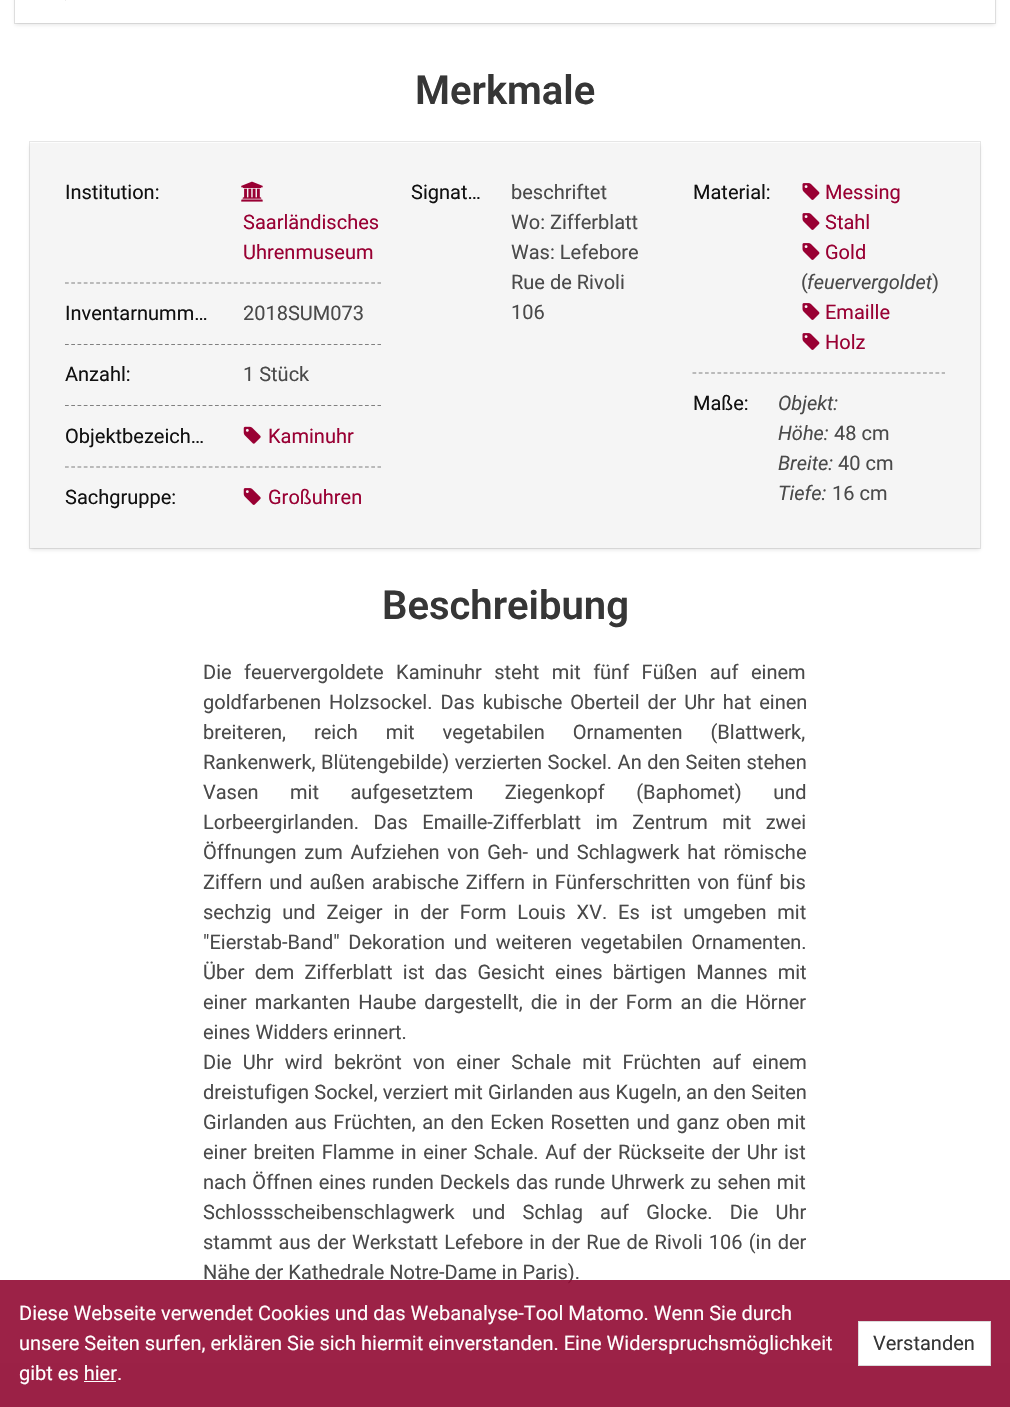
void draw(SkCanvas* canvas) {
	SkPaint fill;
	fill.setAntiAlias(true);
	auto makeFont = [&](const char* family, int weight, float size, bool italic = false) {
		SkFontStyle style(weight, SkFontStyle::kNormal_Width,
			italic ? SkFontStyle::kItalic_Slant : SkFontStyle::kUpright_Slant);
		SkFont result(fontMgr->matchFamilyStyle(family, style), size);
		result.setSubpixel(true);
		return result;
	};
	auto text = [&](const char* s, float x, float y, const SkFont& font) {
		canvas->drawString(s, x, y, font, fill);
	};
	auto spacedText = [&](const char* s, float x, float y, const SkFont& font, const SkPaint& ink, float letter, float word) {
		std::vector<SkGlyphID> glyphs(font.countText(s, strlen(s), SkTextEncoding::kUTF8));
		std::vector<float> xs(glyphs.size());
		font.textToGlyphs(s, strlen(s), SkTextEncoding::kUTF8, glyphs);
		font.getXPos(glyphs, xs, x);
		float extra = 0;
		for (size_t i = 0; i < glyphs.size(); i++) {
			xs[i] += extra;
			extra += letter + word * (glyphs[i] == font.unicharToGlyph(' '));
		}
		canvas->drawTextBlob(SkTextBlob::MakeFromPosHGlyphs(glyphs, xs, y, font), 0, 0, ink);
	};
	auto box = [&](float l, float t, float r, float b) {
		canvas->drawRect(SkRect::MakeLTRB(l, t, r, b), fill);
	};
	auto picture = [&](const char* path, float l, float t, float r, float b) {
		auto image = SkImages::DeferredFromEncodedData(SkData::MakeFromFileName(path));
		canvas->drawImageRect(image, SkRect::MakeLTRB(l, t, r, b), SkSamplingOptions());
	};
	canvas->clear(0xFFFFFFFF);
	fill.setStyle(SkPaint::kStroke_Style);
	fill.setStrokeWidth(1);
	fill.setColor(0xFFE7E7E7);
	canvas->drawRect(SkRect::MakeLTRB(14.5f, -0.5f, 995.5f, 23.5f), fill);
	fill.setStyle(SkPaint::kFill_Style);
	fill.setColor(0x1A0A0A0A);
	fill.setMaskFilter(SkMaskFilter::MakeBlur(kNormal_SkBlurStyle, 2));
	canvas->drawRect(SkRect::MakeLTRB(15, -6, 995, 25), fill);
	fill.setMaskFilter(nullptr);
	fill.setColor(0xFFFFFFFF);
	box(15, 0, 995, 23);
	fill.setColor(0xFFEDEDED);
	box(65, 0, 66, 1);
	fill.setStyle(SkPaint::kStroke_Style);
	fill.setColor(0xFFE7E7E7);
	canvas->drawRect(SkRect::MakeLTRB(29.5f, 141.5f, 980.5f, 548.5f), fill);
	fill.setStyle(SkPaint::kFill_Style);
	fill.setColor(0x1A0A0A0A);
	fill.setMaskFilter(SkMaskFilter::MakeBlur(kNormal_SkBlurStyle, 2));
	canvas->drawRect(SkRect::MakeLTRB(30, 145, 980, 550), fill);
	fill.setMaskFilter(nullptr);
	fill.setColor(0xFFF5F5F5);
	box(30, 143, 980, 548);
	fill.setStyle(SkPaint::kStroke_Style);
	fill.setStrokeWidth(1.2f);
	fill.setColor(0xFF808080);
	fill.setPathEffect(SkDashPathEffect::Make({{3.75f, 2.5f}}, 0));
	canvas->drawPath(SkPathBuilder().moveTo(65, 283).lineTo(381, 283).detach(), fill);
	fill.setPathEffect(nullptr);
	picture("image0.png", 241, 181, 263, 202);
	fill.setPathEffect(SkDashPathEffect::Make({{3.75f, 2.5f}}, 0));
	canvas->drawPath(SkPathBuilder().moveTo(65, 344.5f).lineTo(381, 344.5f).detach(), fill);
	fill.setPathEffect(nullptr);
	fill.setPathEffect(SkDashPathEffect::Make({{3.75f, 2.5f}}, 0));
	canvas->drawPath(SkPathBuilder().moveTo(65, 405.5f).lineTo(381, 405.5f).detach(), fill);
	fill.setPathEffect(nullptr);
	fill.setPathEffect(SkDashPathEffect::Make({{3.75f, 2.5f}}, 0));
	canvas->drawPath(SkPathBuilder().moveTo(65, 467).lineTo(381, 467).detach(), fill);
	fill.setPathEffect(nullptr);
	picture("image1.png", 243, 426, 261, 444);
	picture("image2.png", 243, 488, 261, 505);
	fill.setPathEffect(SkDashPathEffect::Make({{3.75f, 2.48f}}, 0));
	canvas->drawPath(SkPathBuilder().moveTo(692.5f, 373).lineTo(945, 373).detach(), fill);
	fill.setPathEffect(nullptr);
	picture("image3.png", 802, 183, 820, 200);
	picture("image3.png", 802, 213, 820, 230);
	picture("image3.png", 802, 243, 820, 260);
	picture("image3.png", 802, 303, 820, 320);
	picture("image3.png", 802, 333, 820, 350);
	fill.setStyle(SkPaint::kFill_Style);
	fill.setColor(0xFFF5F5F5);
	box(0, 1363, 1010, 1407);
	auto font1 = makeFont("Roboto", 600, 40);
	fill.setColor(0xFF363636);
	text("Merkmale", 415, 104, font1);
	auto font2 = makeFont("Roboto", 400, 20);
	fill.setColor(0xFF111111);
	text("Institution:", 65, 199, font2);
	fill.setColor(0xFF990033);
	text("Saarländisches", 243, 229, font2);
	text("Uhrenmuseum", 243, 259, font2);
	fill.setColor(0xFF111111);
	text("Inventarnumm…", 65, 320, font2);
	fill.setColor(0xFF4A4A4A);
	text("2018SUM073", 243, 320, font2);
	fill.setColor(0xFF111111);
	text("Anzahl:", 65, 381, font2);
	fill.setColor(0xFF4A4A4A);
	text("1 Stück", 243, 381, font2);
	fill.setColor(0xFF111111);
	text("Objektbezeich…", 65, 443, font2);
	fill.setColor(0xFF990033);
	text("Kaminuhr", 268, 443, font2);
	fill.setColor(0xFF111111);
	text("Sachgruppe:", 65, 504, font2);
	fill.setColor(0xFF990033);
	text("Großuhren", 268, 504, font2);
	fill.setColor(0xFF111111);
	text("Signat…", 411, 199, font2);
	fill.setColor(0xFF4A4A4A);
	text("beschriftet", 511, 199, font2);
	text("Wo: Zifferblatt", 511, 229, font2);
	text("Was: Lefebore", 511, 259, font2);
	text("Rue de Rivoli", 511, 289, font2);
	text("106", 511, 319, font2);
	fill.setColor(0xFF111111);
	text("Material:", 693, 199, font2);
	fill.setColor(0xFF990033);
	text("Messing", 825, 199, font2);
	text("Stahl", 825, 229, font2);
	text("Gold", 825, 259, font2);
	fill.setColor(0xFF4A4A4A);
	text("(", 801, 289, font2);
	auto font3 = makeFont("Roboto", 400, 20, true);
	text("feuervergoldet", 807, 289, font3);
	text(")", 932, 289, font2);
	fill.setColor(0xFF990033);
	text("Emaille", 825, 319, font2);
	text("Holz", 825, 349, font2);
	fill.setColor(0xFF111111);
	text("Maße:", 693, 410, font2);
	fill.setColor(0xFF4A4A4A);
	text("Objekt:", 778, 410, font3);
	text("Höhe:", 778, 440, font3);
	text("48 cm", 834, 440, font2);
	text("Breite:", 778, 470, font3);
	text("40 cm", 838, 470, font2);
	text("Tiefe:", 778, 500, font3);
	text("16 cm", 832, 500, font2);
	fill.setColor(0xFF363636);
	text("Beschreibung", 382, 619, font1);
	fill.setColor(0xFF4A4A4A);
	spacedText("Die feuervergoldete Kaminuhr steht mit fünf Füßen auf einem", 203, 679, font2, fill, 0, 7.5f);
	spacedText("goldfarbenen Holzsockel. Das kubische Oberteil der Uhr hat einen", 203, 709, font2, fill, 0, 3);
	spacedText("breiteren, reich mit vegetabilen Ornamenten (Blattwerk,", 203, 739, font2, fill, 0, 23);
	spacedText("Rankenwerk, Blütengebilde) verzierten Sockel. An den Seiten stehen", 203, 769, font2, fill, 0, 0.5f);
	spacedText("Vasen mit aufgesetztem Ziegenkopf (Baphomet) und", 203, 799, font2, fill, 0, 26.5f);
	spacedText("Lorbeergirlanden. Das Emaille-Zifferblatt im Zentrum mit zwei", 203, 829, font2, fill, 0, 9.5f);
	spacedText("Öffnungen zum Aufziehen von Geh- und Schlagwerk hat römische", 203, 859, font2, fill, 0, 2.75f);
	spacedText("Ziffern und außen arabische Ziffern in Fünferschritten von fünf bis", 203, 889, font2, fill, 0, 2);
	spacedText("sechzig und Zeiger in der Form Louis XV. Es ist umgeben mit", 203, 919, font2, fill, 0, 5.9f);
	spacedText("\"Eierstab-Band\" Dekoration und weiteren vegetabilen Ornamenten.", 203, 949, font2, fill, 0, 3.75f);
	spacedText("Über dem Zifferblatt ist das Gesicht eines bärtigen Mannes mit", 203, 979, font2, fill, 0, 5.25f);
	spacedText("einer markanten Haube dargestellt, die in der Form an die Hörner", 203, 1009, font2, fill, 0, 3);
	text("eines Widders erinnert.", 203, 1039, font2);
	spacedText("Die Uhr wird bekrönt von einer Schale mit Früchten auf einem", 203, 1069, font2, fill, 0, 6.25f);
	spacedText("dreistufigen Sockel, verziert mit Girlanden aus Kugeln, an den Seiten", 203, 1099, font2, fill, 0, 0.25f);
	spacedText("Girlanden aus Früchten, an den Ecken Rosetten und ganz oben mit", 203, 1129, font2, fill, 0, 1.6f);
	spacedText("einer breiten Flamme in einer Schale. Auf der Rückseite der Uhr ist", 203, 1159, font2, fill, 0, 1.6f);
	spacedText("nach Öffnen eines runden Deckels das runde Uhrwerk zu sehen mit", 203, 1189, font2, fill, 0, 1);
	spacedText("Schlossscheibenschlagwerk und Schlag auf Glocke. Die Uhr", 203, 1219, font2, fill, 0, 12.25f);
	spacedText("stammt aus der Werkstatt Lefebore in der Rue de Rivoli 106 (in der", 203, 1249, font2, fill, 0, 1.25f);
	text("Nähe der Kathedrale Notre-Dame in Paris).", 203, 1279, font2);
	fill.setColor(0xE6910A33);
	box(0, 1280, 1010, 1407);
	fill.setColor(0xFFFFFFFF);
	text("Diese Webseite verwendet Cookies und das Webanalyse-Tool Matomo. Wenn Sie durch", 19, 1320, font2);
	text("unsere Seiten surfen, erklären Sie sich hiermit einverstanden. Eine Widerspruchsmöglichkeit", 19, 1350, font2);
	text("gibt es hier.", 19, 1380, font2);
	box(84, 1381, 116, 1382);
	canvas->drawRect(SkRect::MakeLTRB(858.5f, 1321.5f, 990.5f, 1365.5f), fill);
	fill.setStyle(SkPaint::kStroke_Style);
	fill.setStrokeWidth(1);
	fill.setColor(0xFFDBDBDB);
	canvas->drawRect(SkRect::MakeLTRB(858.5f, 1321.5f, 990.5f, 1365.5f), fill);
	fill.setStyle(SkPaint::kFill_Style);
	fill.setColor(0xFF363636);
	text("Verstanden", 873, 1350, font2);
}
